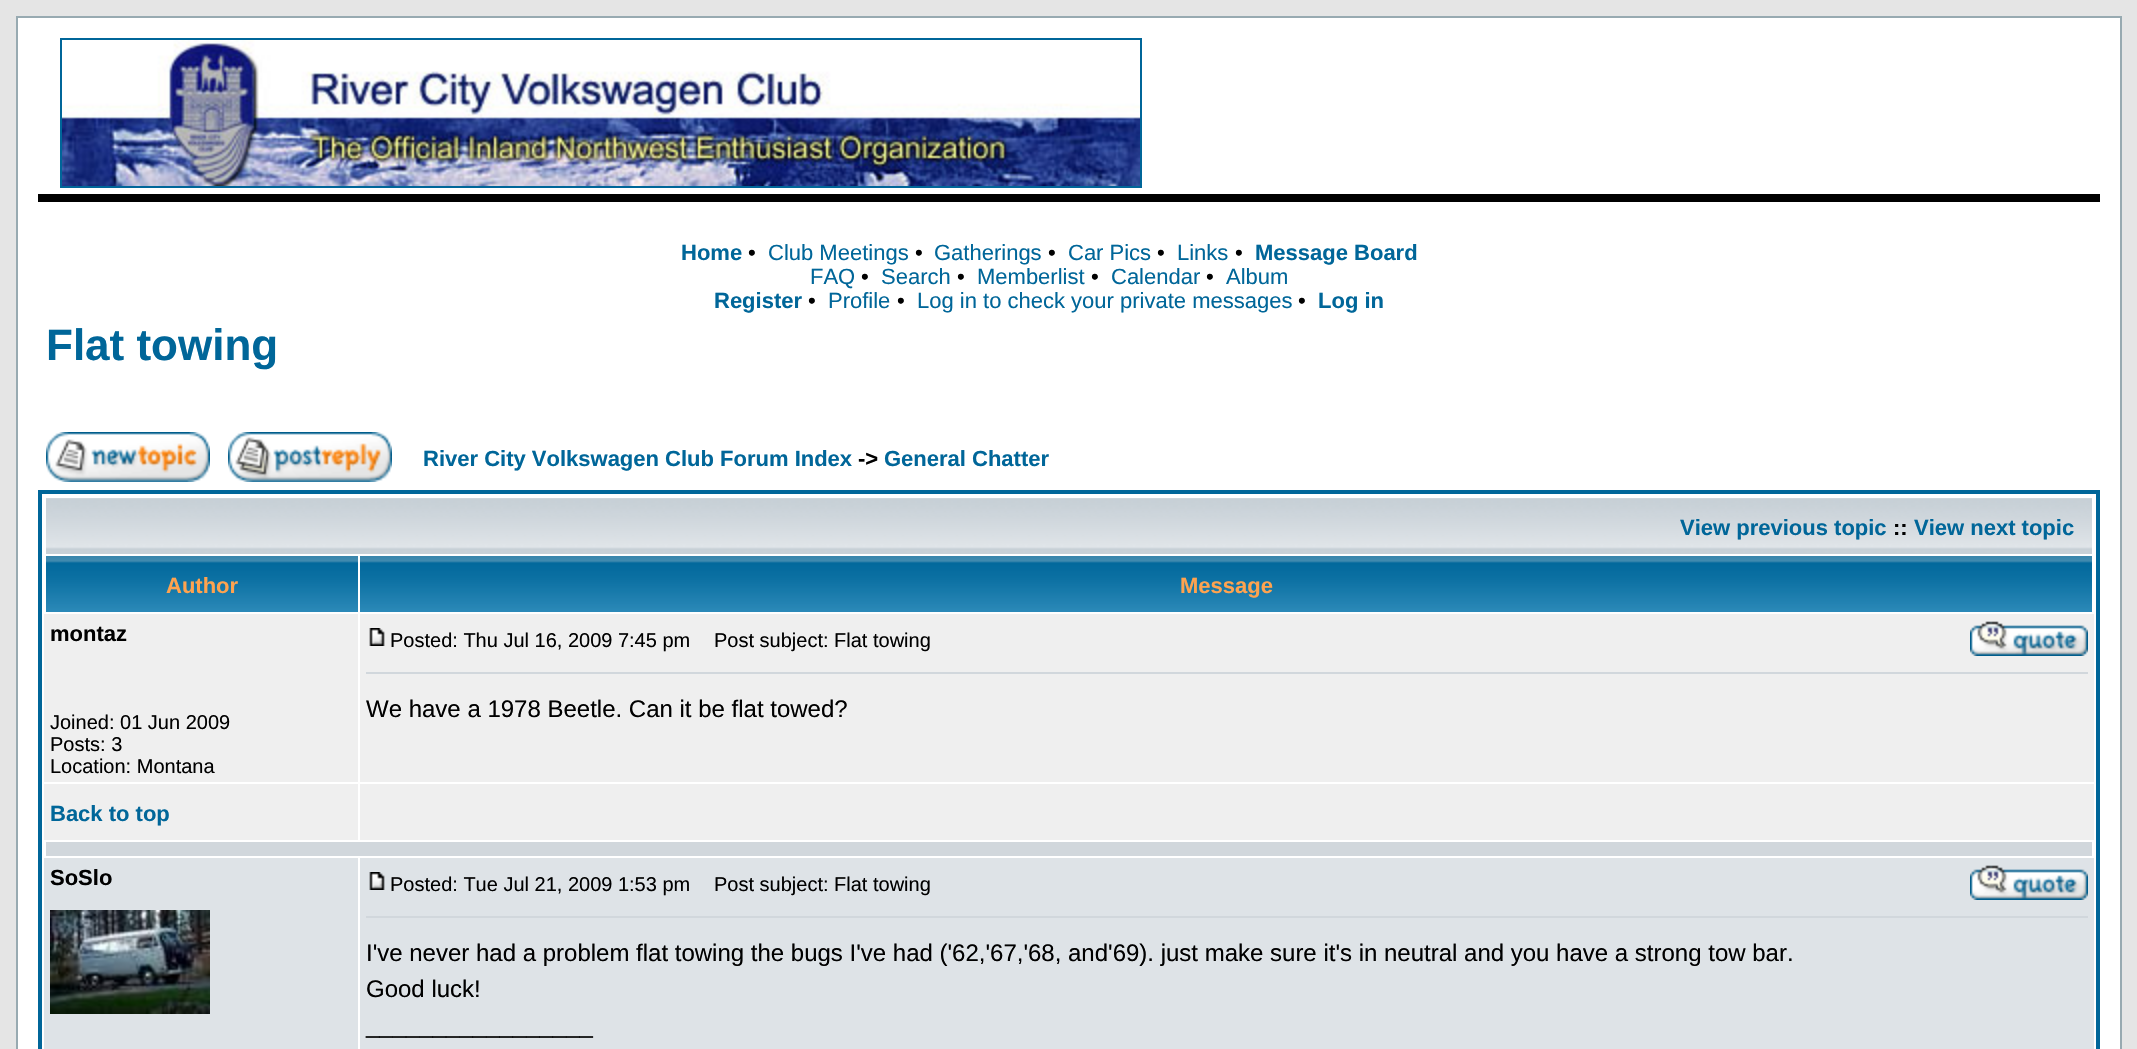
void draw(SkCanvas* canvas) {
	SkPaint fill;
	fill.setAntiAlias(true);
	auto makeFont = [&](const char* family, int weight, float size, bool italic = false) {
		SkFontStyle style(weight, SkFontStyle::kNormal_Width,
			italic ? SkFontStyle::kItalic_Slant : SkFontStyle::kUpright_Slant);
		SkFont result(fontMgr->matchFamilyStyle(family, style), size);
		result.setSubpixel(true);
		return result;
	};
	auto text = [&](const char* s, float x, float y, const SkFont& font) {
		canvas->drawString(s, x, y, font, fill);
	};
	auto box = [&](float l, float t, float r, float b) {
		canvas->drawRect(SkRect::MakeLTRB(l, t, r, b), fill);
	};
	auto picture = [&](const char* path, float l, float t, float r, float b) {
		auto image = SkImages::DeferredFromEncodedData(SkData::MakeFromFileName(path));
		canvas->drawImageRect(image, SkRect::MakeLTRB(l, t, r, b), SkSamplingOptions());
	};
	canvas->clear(0xFFE5E5E5);
	fill.setColor(0xFFFFFFFF);
	canvas->drawRect(SkRect::MakeLTRB(17, 17, 2121, 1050), fill);
	fill.setStyle(SkPaint::kStroke_Style);
	fill.setStrokeWidth(2);
	fill.setColor(0xFF98AAB1);
	canvas->drawRect(SkRect::MakeLTRB(17, 17, 2121, 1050), fill);
	fill.setColor(0xFF006699);
	canvas->drawRect(SkRect::MakeLTRB(61, 39, 1141, 187), fill);
	picture("image0.png", 62, 40, 1140, 186);
	fill.setStyle(SkPaint::kFill_Style);
	fill.setColor(0xFF000000);
	box(38, 194, 2100, 202);
	picture("image1.png", 46, 432, 210, 482);
	picture("image2.png", 228, 432, 392, 482);
	fill.setStyle(SkPaint::kStroke_Style);
	fill.setStrokeWidth(4);
	fill.setColor(0xFF006699);
	canvas->drawRect(SkRect::MakeLTRB(40, 492, 2098, 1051), fill);
	picture("image3.png", 46, 498, 2092, 554);
	picture("image4.png", 46, 556, 358, 612);
	picture("image5.png", 360, 556, 2092, 612);
	fill.setStyle(SkPaint::kFill_Style);
	fill.setColor(0xFFEFEFEF);
	box(44, 614, 358, 782);
	box(360, 614, 2094, 782);
	picture("image6.png", 369, 628, 385, 646);
	picture("image7.png", 1970, 621, 2088, 656);
	fill.setColor(0xFFD1D7DC);
	box(366, 672, 2088, 674);
	fill.setColor(0xFFEFEFEF);
	box(44, 784, 358, 840);
	box(360, 784, 2094, 840);
	fill.setColor(0xFFD1D7DC);
	box(46, 842, 2092, 856);
	fill.setColor(0xFFDEE3E7);
	box(44, 858, 358, 1049);
	picture("image8.png", 50, 910, 210, 1014);
	box(360, 858, 2094, 1049);
	picture("image9.png", 369, 872, 385, 890);
	picture("image10.png", 1970, 865, 2088, 900);
	fill.setColor(0xFFD1D7DC);
	box(366, 916, 2088, 918);
	auto font1 = makeFont("Liberation Sans", 700, 22);
	fill.setColor(0xFF006699);
	text("Home", 681, 260, font1);
	auto font2 = makeFont("Liberation Sans", 400, 22);
	fill.setColor(0xFF000000);
	text("•", 748, 260, font2);
	fill.setColor(0xFF006699);
	text("Club Meetings", 768, 260, font2);
	fill.setColor(0xFF000000);
	text("•", 915, 260, font2);
	fill.setColor(0xFF006699);
	text("Gatherings", 934, 260, font2);
	fill.setColor(0xFF000000);
	text("•", 1048, 260, font2);
	fill.setColor(0xFF006699);
	text("Car Pics", 1068, 260, font2);
	fill.setColor(0xFF000000);
	text("•", 1157, 260, font2);
	fill.setColor(0xFF006699);
	text("Links", 1177, 260, font2);
	fill.setColor(0xFF000000);
	text("•", 1235, 260, font2);
	fill.setColor(0xFF006699);
	text("Message Board", 1255, 260, font1);
	text("FAQ", 810, 284, font2);
	fill.setColor(0xFF000000);
	text("•", 861, 284, font2);
	fill.setColor(0xFF006699);
	text("Search", 881, 284, font2);
	fill.setColor(0xFF000000);
	text("•", 957, 284, font2);
	fill.setColor(0xFF006699);
	text("Memberlist", 977, 284, font2);
	fill.setColor(0xFF000000);
	text("•", 1091, 284, font2);
	fill.setColor(0xFF006699);
	text("Calendar", 1111, 284, font2);
	fill.setColor(0xFF000000);
	text("•", 1206, 284, font2);
	fill.setColor(0xFF006699);
	text("Album", 1226, 284, font2);
	text("Register", 714, 308, font1);
	fill.setColor(0xFF000000);
	text("•", 808, 308, font2);
	fill.setColor(0xFF006699);
	text("Profile", 828, 308, font2);
	fill.setColor(0xFF000000);
	text("•", 897, 308, font2);
	fill.setColor(0xFF006699);
	text("Log in to check your private messages", 917, 308, font2);
	fill.setColor(0xFF000000);
	text("•", 1298, 308, font2);
	fill.setColor(0xFF006699);
	text("Log in", 1318, 308, font1);
	auto font3 = makeFont("Liberation Sans", 700, 44);
	text("Flat towing", 46, 360, font3);
	text("River City Volkswagen Club Forum Index", 423, 466, font1);
	fill.setColor(0xFF000000);
	text("->", 858, 466, font1);
	fill.setColor(0xFF006699);
	text("General Chatter", 884, 466, font1);
	text("View previous topic", 1680, 535, font1);
	fill.setColor(0xFF000000);
	text("::", 1893, 535, font1);
	fill.setColor(0xFF006699);
	text("View next topic", 1914, 535, font1);
	fill.setColor(0xFFFFA34F);
	text("Author", 166, 593, font1);
	text("Message", 1180, 593, font1);
	fill.setColor(0xFF000000);
	text("montaz", 50, 641, font1);
	auto font4 = makeFont("Liberation Sans", 400, 20);
	text("Joined: 01 Jun 2009", 50, 729, font4);
	text("Posts: 3", 50, 751, font4);
	text("Location: Montana", 50, 773, font4);
	text("Posted: Thu Jul 16, 2009 7:45 pm", 390, 647, font4);
	text("Post subject: Flat towing", 714, 647, font4);
	auto font5 = makeFont("Liberation Sans", 400, 24);
	text("We have a 1978 Beetle. Can it be flat towed?", 366, 717, font5);
	fill.setColor(0xFF006699);
	text("Back to top", 50, 821, font1);
	fill.setColor(0xFF000000);
	text("SoSlo", 50, 885, font1);
	text("Posted: Tue Jul 21, 2009 1:53 pm", 390, 891, font4);
	text("Post subject: Flat towing", 714, 891, font4);
	text("I've never had a problem flat towing the bugs I've had ('62,'67,'68, and'69). just make sure it's in neutral and you have a strong tow bar.", 366, 961, font5);
	text("Good luck!", 366, 997, font5);
	text("_________________", 366, 1033, font5);
}
